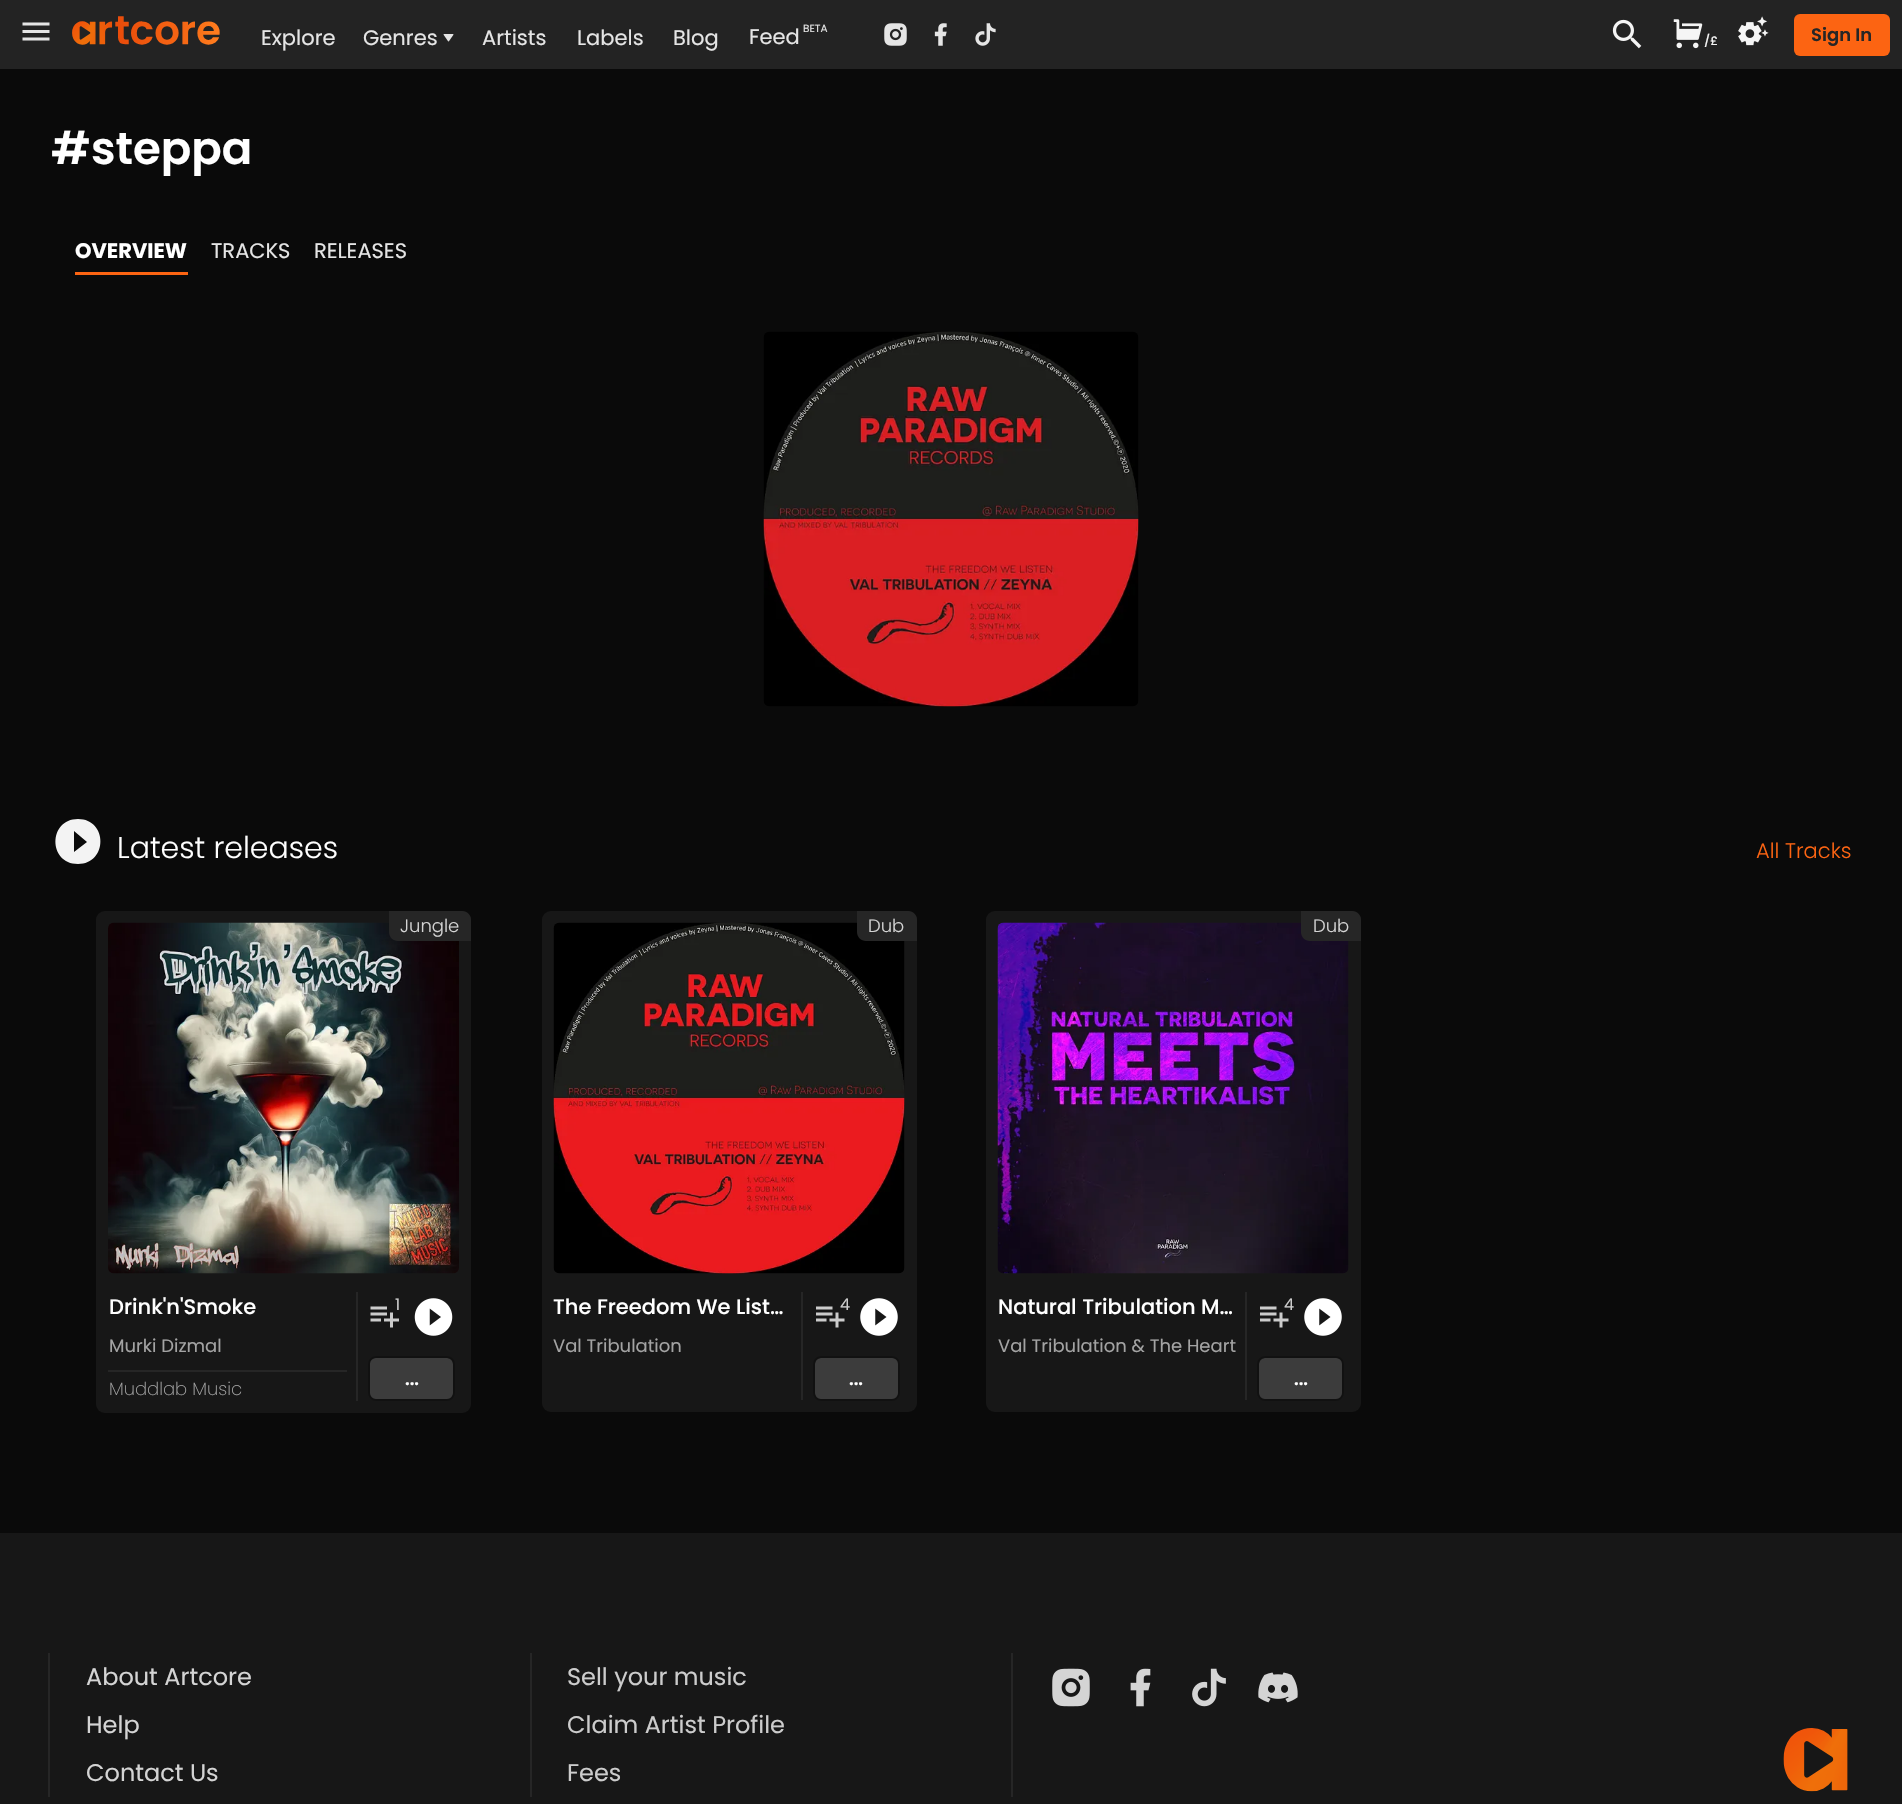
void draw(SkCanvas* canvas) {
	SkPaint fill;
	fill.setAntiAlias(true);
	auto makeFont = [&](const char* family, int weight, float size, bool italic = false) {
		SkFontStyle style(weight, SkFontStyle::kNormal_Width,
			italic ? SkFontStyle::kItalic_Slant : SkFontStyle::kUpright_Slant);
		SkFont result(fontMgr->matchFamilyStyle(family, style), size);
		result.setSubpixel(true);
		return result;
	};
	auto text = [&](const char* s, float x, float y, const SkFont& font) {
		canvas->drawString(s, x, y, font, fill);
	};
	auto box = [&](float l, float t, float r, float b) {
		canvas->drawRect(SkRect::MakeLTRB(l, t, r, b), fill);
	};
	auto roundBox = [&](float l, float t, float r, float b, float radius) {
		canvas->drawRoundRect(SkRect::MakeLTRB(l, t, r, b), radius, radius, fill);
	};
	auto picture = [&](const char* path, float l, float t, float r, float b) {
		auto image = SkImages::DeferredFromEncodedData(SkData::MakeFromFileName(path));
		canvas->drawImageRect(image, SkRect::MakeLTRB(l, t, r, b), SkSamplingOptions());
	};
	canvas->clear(0xFF0A0A0A);
	fill.setColor(0xFF232323);
	box(0, 0, 1902, 69);
	picture("image0.png", 22, 22, 50, 41);
	picture("image1.png", 72, 16, 220, 45);
	picture("image2.png", 443, 34, 454, 42);
	picture("image3.png", 884, 23, 907, 46);
	picture("image4.png", 934, 23, 947, 46);
	picture("image5.png", 975, 23, 996, 46);
	picture("image6.png", 1612, 19, 1642, 49);
	picture("image7.png", 1673, 19, 1703, 49);
	picture("image8.png", 1738, 16, 1769, 46);
	fill.setColor(0xFFFC6412);
	roundBox(1794, 14, 1890, 56, 6);
	box(75, 272, 188, 275);
	picture("image9.png", 763, 331, 1139, 707);
	fill.setColor(0xFFF3F3F3);
	canvas->drawPath(SkPathBuilder().moveTo(78, 819).cubicTo(48, 819, 48, 864, 78, 864).cubicTo(108, 864, 108, 819, 78, 819).close().moveTo(74, 852).lineTo(74, 831).lineTo(87, 842).close().detach(), fill);
	fill.setColor(0xFF171717);
	roundBox(96, 911, 471, 1413, 9);
	picture("image10.png", 108, 922, 459, 1274);
	fill.setColor(0xFF262626);
	canvas->drawPath(SkPathBuilder().moveTo(389, 911).lineTo(462, 911).cubicTo(467, 911, 471, 915, 471, 920).lineTo(471, 941).lineTo(398, 941).cubicTo(393, 941, 389, 937, 389, 932).close().detach(), fill);
	box(108, 1370, 347, 1372);
	box(356, 1292, 358, 1401);
	picture("image11.png", 370, 1306, 399, 1328);
	picture("image12.png", 414, 1298, 453, 1336);
	fill.setColor(0xFF3C3C3C);
	roundBox(369, 1358, 453, 1400, 6);
	fill.setStyle(SkPaint::kStroke_Style);
	fill.setStrokeWidth(2);
	fill.setColor(0xFF111111);
	canvas->drawRoundRect(SkRect::MakeLTRB(369, 1357, 454, 1400), 7, 7, fill);
	fill.setStyle(SkPaint::kFill_Style);
	fill.setColor(0xFF171717);
	roundBox(542, 911, 917, 1412, 9);
	picture("image13.png", 553, 922, 905, 1274);
	fill.setColor(0xFF262626);
	canvas->drawPath(SkPathBuilder().moveTo(857, 911).lineTo(908, 911).cubicTo(913, 911, 917, 915, 917, 920).lineTo(917, 941).lineTo(866, 941).cubicTo(861, 941, 857, 937, 857, 932).close().detach(), fill);
	box(801, 1292, 803, 1400);
	picture("image14.png", 816, 1306, 845, 1328);
	picture("image15.png", 860, 1298, 898, 1336);
	fill.setColor(0xFF3C3C3C);
	roundBox(815, 1358, 899, 1400, 6);
	fill.setStyle(SkPaint::kStroke_Style);
	fill.setColor(0xFF111111);
	canvas->drawRoundRect(SkRect::MakeLTRB(814, 1357, 899, 1400), 7, 7, fill);
	fill.setStyle(SkPaint::kFill_Style);
	fill.setColor(0xFF171717);
	roundBox(986, 911, 1361, 1412, 9);
	picture("image16.png", 997, 922, 1349, 1274);
	fill.setColor(0xFF262626);
	canvas->drawPath(SkPathBuilder().moveTo(1301, 911).lineTo(1352, 911).cubicTo(1357, 911, 1361, 915, 1361, 920).lineTo(1361, 941).lineTo(1310, 941).cubicTo(1305, 941, 1301, 937, 1301, 932).close().detach(), fill);
	box(1245, 1292, 1247, 1400);
	picture("image14.png", 1260, 1306, 1289, 1328);
	picture("image15.png", 1304, 1298, 1342, 1336);
	fill.setColor(0xFF3C3C3C);
	roundBox(1259, 1358, 1343, 1400, 6);
	fill.setStyle(SkPaint::kStroke_Style);
	fill.setColor(0xFF111111);
	canvas->drawRoundRect(SkRect::MakeLTRB(1258, 1357, 1343, 1400), 7, 7, fill);
	fill.setStyle(SkPaint::kFill_Style);
	fill.setColor(0xFF171717);
	box(0, 1533, 1902, 1804);
	fill.setColor(0xFF262626);
	box(48, 1653, 50, 1797);
	box(530, 1653, 532, 1797);
	box(1011, 1653, 1013, 1797);
	picture("image17.png", 1052, 1668, 1090, 1707);
	picture("image18.png", 1130, 1668, 1151, 1707);
	picture("image19.png", 1192, 1668, 1226, 1707);
	picture("image20.png", 1258, 1672, 1298, 1703);
	picture("image21.png", 1783, 1728, 1848, 1792);
	auto font1 = makeFont("Poppins", 400, 21);
	fill.setColor(0xFFE5E5E5);
	text("Explore", 261, 45, font1);
	text("Genres", 363, 45, font1);
	text("Artists", 482, 45, font1);
	text("Labels", 577, 45, font1);
	text("Blog", 673, 45, font1);
	text("Feed", 749, 44, font1);
	auto font2 = makeFont("Poppins", 400, 10.5f);
	text("BETA", 803, 32, font2);
	auto font3 = makeFont("Poppins", 500, 12);
	fill.setColor(0xFFF5F5F5);
	text("/£", 1704, 45, font3);
	auto font4 = makeFont("Poppins", 600, 18);
	fill.setColor(0xFF262626);
	text("Sign In", 1811, 41, font4);
	auto font5 = makeFont("Poppins", 600, 45);
	fill.setColor(0xFFFFFFFF);
	text("#steppa", 51, 164, font5);
	auto font6 = makeFont("Poppins", 700, 21);
	text("OVERVIEW", 75, 258, font6);
	fill.setColor(0xFFE5E5E5);
	text("TRACKS", 211, 258, font1);
	text("RELEASES", 314, 258, font1);
	auto font7 = makeFont("Poppins", 300, 30);
	fill.setColor(0xFFFFFFFF);
	text("Latest releases", 117, 858, font7);
	auto font8 = makeFont("Poppins", 300, 21);
	fill.setColor(0xFFFC6412);
	text("All Tracks", 1756, 858, font8);
	auto font9 = makeFont("Poppins", 300, 18);
	fill.setColor(0xFFD4D4D4);
	text("Jungle", 400, 932, font9);
	auto font10 = makeFont("Poppins", 500, 21);
	fill.setColor(0xFFFFFFFF);
	text("Drink'n'Smoke", 109, 1314, font10);
	auto font11 = makeFont("Poppins", 400, 18);
	fill.setColor(0xFFA3A3A3);
	text("Murki Dizmal", 109, 1352, font11);
	auto font12 = makeFont("Poppins", 200, 18);
	text("Muddlab Music", 109, 1395, font12);
	auto font13 = makeFont("Poppins", 400, 16);
	fill.setColor(0xFFCCCCCC);
	text("1", 395, 1310, font13);
	fill.setColor(0xFFFFFFFF);
	text("...", 405, 1385, font4);
	fill.setColor(0xFFD4D4D4);
	text("Dub", 868, 932, font9);
	fill.setColor(0xFFFFFFFF);
	text("The Freedom We List…", 553, 1314, font10);
	fill.setColor(0xFFA3A3A3);
	text("Val Tribulation", 553, 1352, font11);
	fill.setColor(0xFFCCCCCC);
	text("4", 840, 1310, font13);
	fill.setColor(0xFFFFFFFF);
	text("...", 849, 1385, font4);
	fill.setColor(0xFFD4D4D4);
	text("Dub", 1313, 932, font9);
	fill.setColor(0xFFFFFFFF);
	text("Natural Tribulation M…", 998, 1314, font10);
	fill.setColor(0xFFA3A3A3);
	text("Val Tribulation & The Heart", 998, 1352, font11);
	fill.setColor(0xFFCCCCCC);
	text("4", 1284, 1310, font13);
	fill.setColor(0xFFFFFFFF);
	text("...", 1294, 1385, font4);
	auto font14 = makeFont("Poppins", 400, 24);
	fill.setColor(0xFFD4D4D4);
	text("About Artcore", 86, 1685, font14);
	text("Help", 86, 1733, font14);
	text("Contact Us", 86, 1781, font14);
	fill.setColor(0xFFCCCCCC);
	text("Sell your music", 567, 1685, font14);
	text("Claim Artist Profile", 567, 1733, font14);
	text("Fees", 567, 1781, font14);
}
